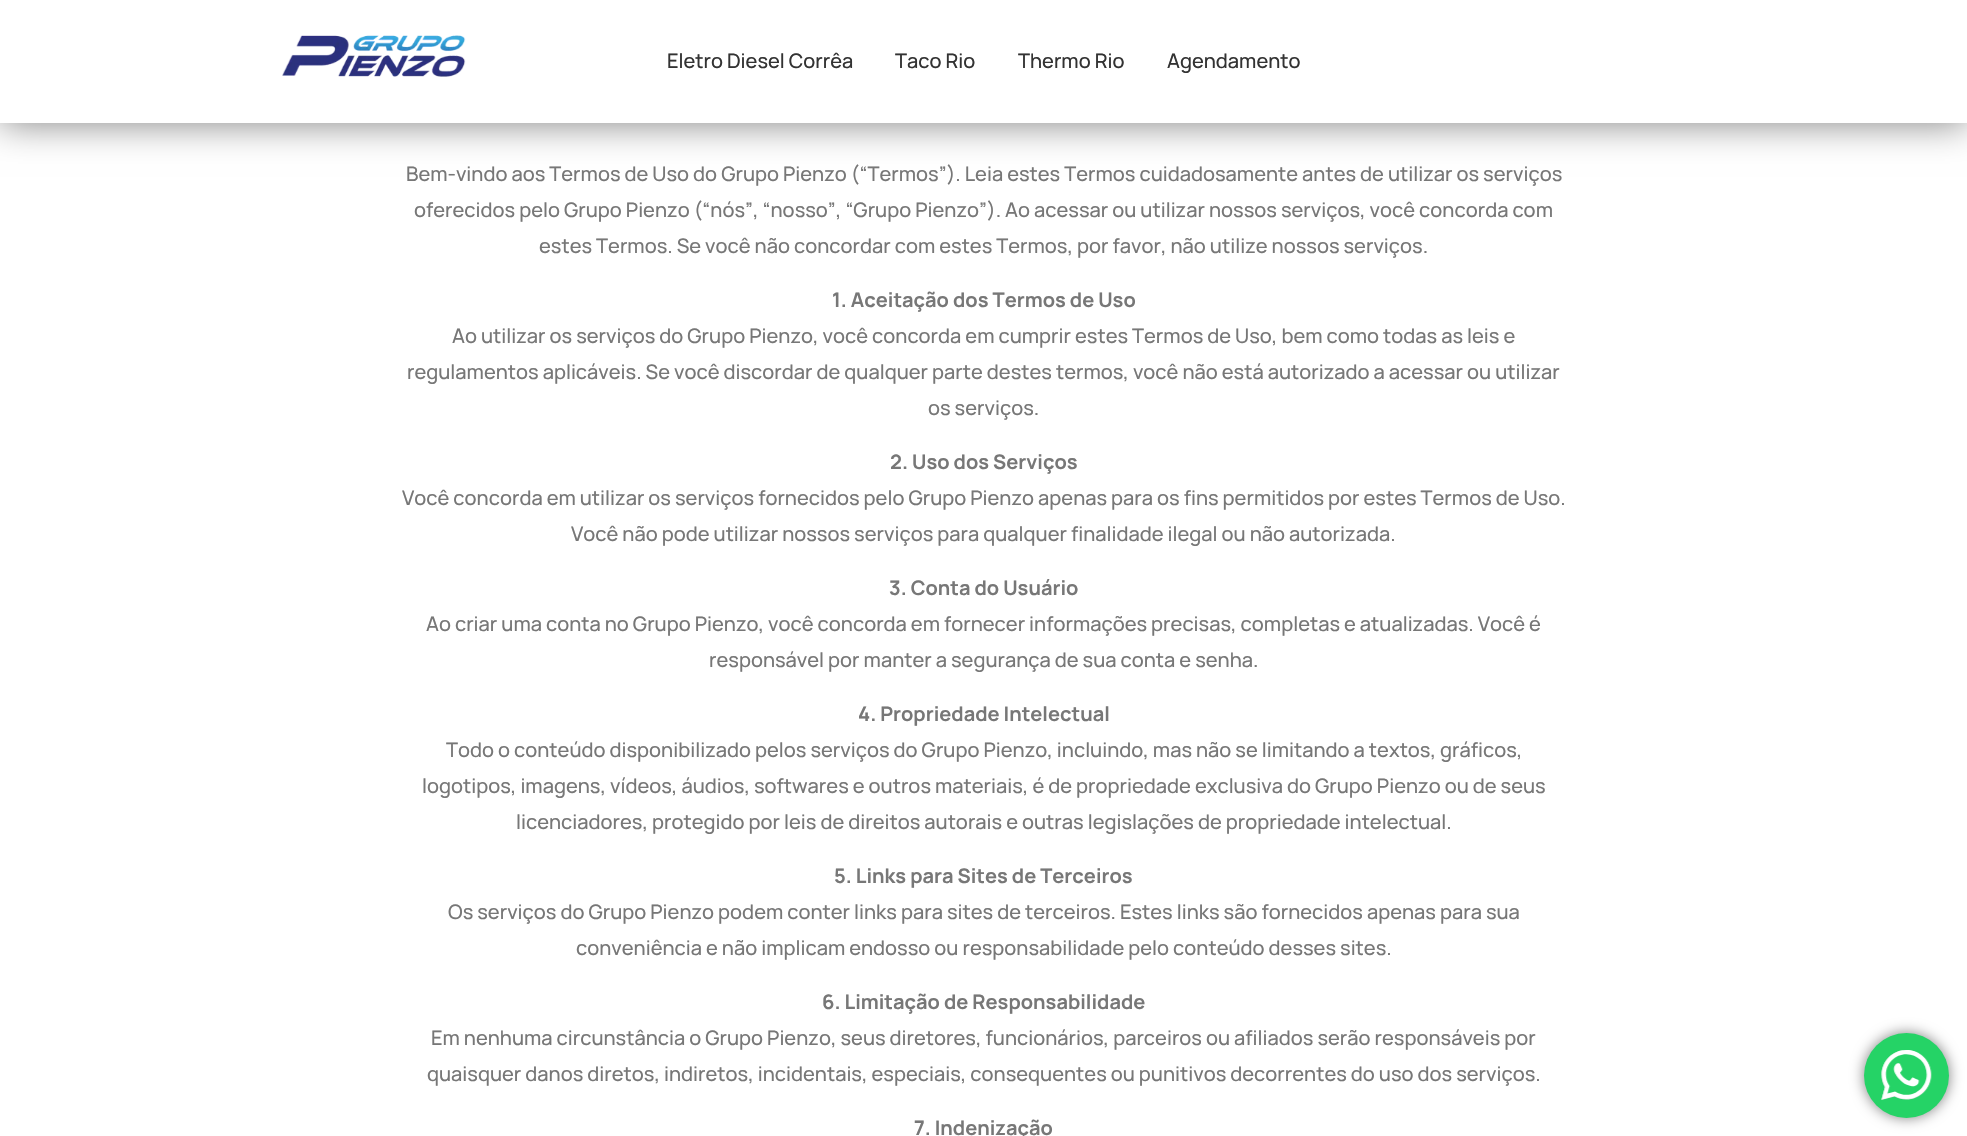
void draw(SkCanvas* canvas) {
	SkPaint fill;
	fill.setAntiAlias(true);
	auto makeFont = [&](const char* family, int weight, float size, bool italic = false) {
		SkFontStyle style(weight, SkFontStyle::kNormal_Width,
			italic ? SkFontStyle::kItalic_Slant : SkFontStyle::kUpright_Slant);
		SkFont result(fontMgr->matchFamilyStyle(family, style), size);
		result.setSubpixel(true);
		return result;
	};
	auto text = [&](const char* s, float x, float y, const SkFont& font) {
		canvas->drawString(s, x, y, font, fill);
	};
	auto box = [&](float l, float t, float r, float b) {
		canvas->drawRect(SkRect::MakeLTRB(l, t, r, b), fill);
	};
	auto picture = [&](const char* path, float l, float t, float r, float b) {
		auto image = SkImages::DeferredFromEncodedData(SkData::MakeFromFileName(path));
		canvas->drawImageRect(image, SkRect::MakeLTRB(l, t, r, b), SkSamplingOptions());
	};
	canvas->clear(0xFFFFFFFF);
	fill.setColor(0x80000000);
	fill.setMaskFilter(SkMaskFilter::MakeBlur(kNormal_SkBlurStyle, 18));
	canvas->drawRect(SkRect::MakeLTRB(0, 0, 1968, 123), fill);
	fill.setMaskFilter(nullptr);
	fill.setColor(0xFFFFFFFF);
	box(0, 0, 1967, 123);
	picture("image0.png", 282, 35, 466, 77);
	fill.setColor(0x80000000);
	fill.setMaskFilter(SkMaskFilter::MakeBlur(kNormal_SkBlurStyle, 7));
	canvas->drawRoundRect(SkRect::MakeLTRB(1864, 1033, 1949, 1118), 42.5f, 42.5f, fill);
	fill.setMaskFilter(nullptr);
	fill.setColor(0xFF25D366);
	canvas->drawCircle(1906.5f, 1075.5f, 42.5f, fill);
	picture("image1.png", 1881, 1050, 1932, 1100);
	auto font1 = makeFont("Manrope", 500, 20);
	fill.setColor(0xFF333333);
	text("Eletro Diesel Corrêa", 667, 68, font1);
	text("Taco Rio", 895, 68, font1);
	text("Thermo Rio", 1018, 68, font1);
	text("Agendamento", 1167, 68, font1);
	fill.setColor(0xFF777777);
	text("Bem-vindo aos Termos de Uso do Grupo Pienzo (“Termos”). Leia estes Termos cuidadosamente antes de utilizar os serviços", 406, 181, font1);
	text("oferecidos pelo Grupo Pienzo (“nós”, “nosso”, “Grupo Pienzo”). Ao acessar ou utilizar nossos serviços, você concorda com", 414, 217, font1);
	text("estes Termos. Se você não concordar com estes Termos, por favor, não utilize nossos serviços.", 539, 253, font1);
	auto font2 = makeFont("Manrope", 700, 20);
	text("1. Aceitação dos Termos de Uso", 832, 307, font2);
	text("Ao utilizar os serviços do Grupo Pienzo, você concorda em cumprir estes Termos de Uso, bem como todas as leis e", 452, 343, font1);
	text("regulamentos aplicáveis. Se você discordar de qualquer parte destes termos, você não está autorizado a acessar ou utilizar", 407, 379, font1);
	text("os serviços.", 928, 415, font1);
	text("2. Uso dos Serviços", 890, 469, font2);
	text("Você concorda em utilizar os serviços fornecidos pelo Grupo Pienzo apenas para os fins permitidos por estes Termos de Uso.", 402, 505, font1);
	text("Você não pode utilizar nossos serviços para qualquer finalidade ilegal ou não autorizada.", 571, 541, font1);
	text("3. Conta do Usuário", 889, 595, font2);
	text("Ao criar uma conta no Grupo Pienzo, você concorda em fornecer informações precisas, completas e atualizadas. Você é", 426, 631, font1);
	text("responsável por manter a segurança de sua conta e senha.", 709, 667, font1);
	text("4. Propriedade Intelectual", 858, 721, font2);
	text("Todo o conteúdo disponibilizado pelos serviços do Grupo Pienzo, incluindo, mas não se limitando a textos, gráficos,", 446, 757, font1);
	text("logotipos, imagens, vídeos, áudios, softwares e outros materiais, é de propriedade exclusiva do Grupo Pienzo ou de seus", 422, 793, font1);
	text("licenciadores, protegido por leis de direitos autorais e outras legislações de propriedade intelectual.", 516, 829, font1);
	text("5. Links para Sites de Terceiros", 834, 883, font2);
	text("Os serviços do Grupo Pienzo podem conter links para sites de terceiros. Estes links são fornecidos apenas para sua", 448, 919, font1);
	text("conveniência e não implicam endosso ou responsabilidade pelo conteúdo desses sites.", 576, 955, font1);
	text("6. Limitação de Responsabilidade", 822, 1009, font2);
	text("Em nenhuma circunstância o Grupo Pienzo, seus diretores, funcionários, parceiros ou afiliados serão responsáveis por", 431, 1045, font1);
	text("quaisquer danos diretos, indiretos, incidentais, especiais, consequentes ou punitivos decorrentes do uso dos serviços.", 427, 1081, font1);
	text("7. Indenização", 914, 1135, font2);
}
